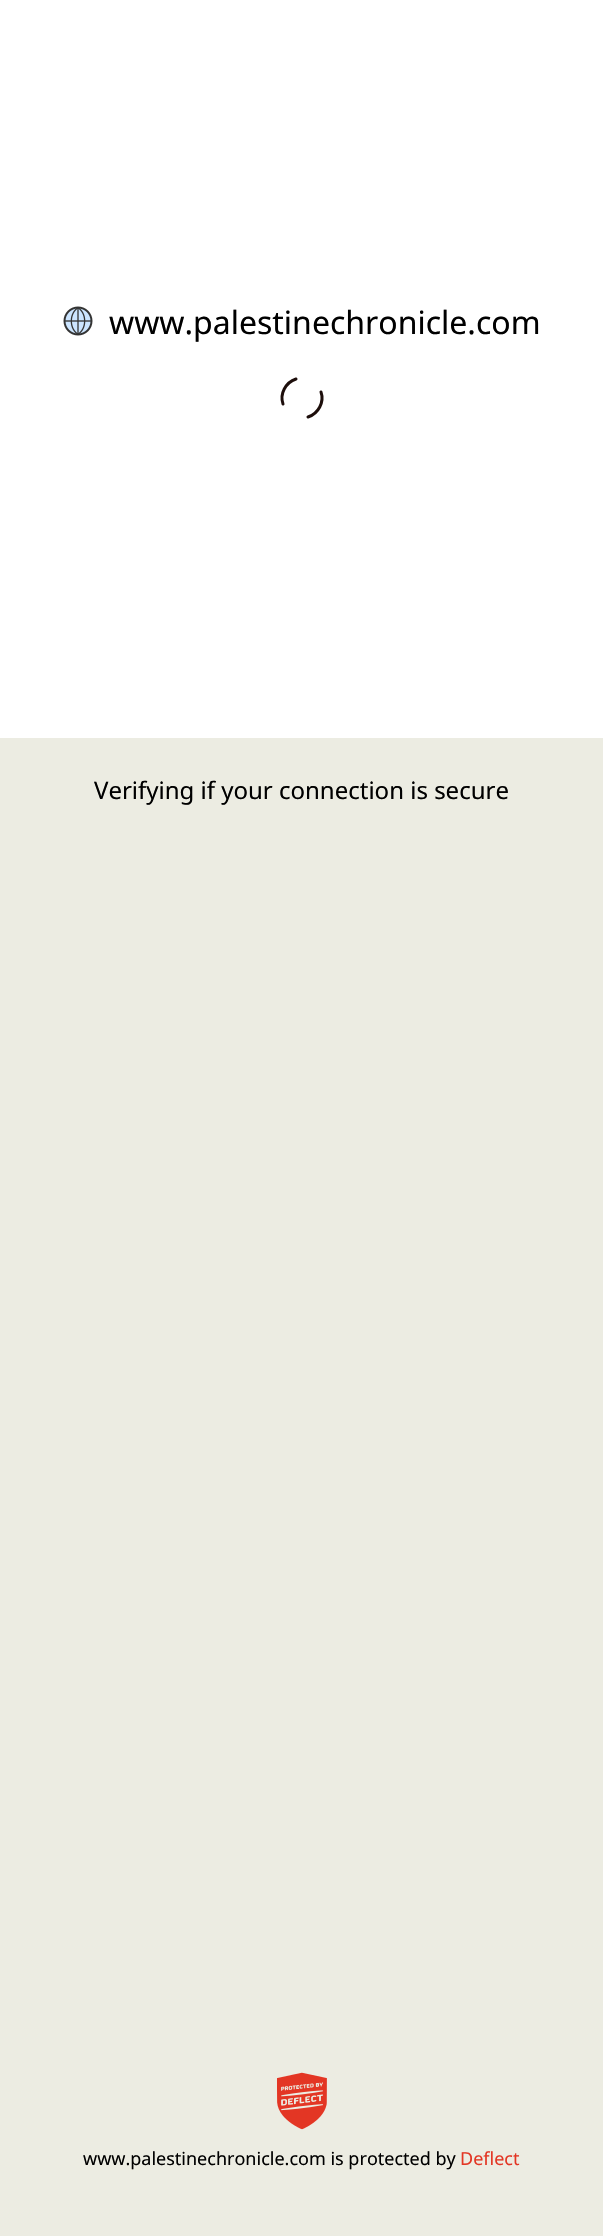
void draw(SkCanvas* canvas) {
	SkPaint fill;
	fill.setAntiAlias(true);
	auto makeFont = [&](const char* family, int weight, float size, bool italic = false) {
		SkFontStyle style(weight, SkFontStyle::kNormal_Width,
			italic ? SkFontStyle::kItalic_Slant : SkFontStyle::kUpright_Slant);
		SkFont result(fontMgr->matchFamilyStyle(family, style), size);
		result.setSubpixel(true);
		return result;
	};
	auto text = [&](const char* s, float x, float y, const SkFont& font) {
		canvas->drawString(s, x, y, font, fill);
	};
	auto box = [&](float l, float t, float r, float b) {
		canvas->drawRect(SkRect::MakeLTRB(l, t, r, b), fill);
	};
	auto picture = [&](const char* path, float l, float t, float r, float b) {
		auto image = SkImages::DeferredFromEncodedData(SkData::MakeFromFileName(path));
		canvas->drawImageRect(image, SkRect::MakeLTRB(l, t, r, b), SkSamplingOptions());
	};
	canvas->clear(0xFFFFFFFF);
	picture("image0.png", 63, 306, 93, 336);
	fill.setStyle(SkPaint::kStroke_Style);
	fill.setStrokeWidth(3);
	fill.setStrokeCap(SkPaint::kRound_Cap);
	fill.setColor(0xFF1D0E0B);
	canvas->drawPath(SkPathBuilder().moveTo(321, 392).cubicTo(324.5f, 402, 318.5f, 413.5f, 308, 417).moveTo(283, 404).cubicTo(279.5f, 394, 285.5f, 382.5f, 296, 379).detach(), fill);
	fill.setStyle(SkPaint::kFill_Style);
	fill.setColor(0xFFECECE2);
	box(0, 738, 603, 2236);
	picture("image1.png", 277, 2072, 327, 2130);
	auto font1 = makeFont("Noto Sans", 400, 32);
	fill.setColor(0xFF000000);
	text("www.palestinechronicle.com", 109, 334, font1);
	auto font2 = makeFont("Noto Sans", 400, 24);
	text("Verifying if your connection is secure", 94, 799, font2);
	auto font3 = makeFont("Noto Sans", 400, 18);
	text("www.palestinechronicle.com is protected by", 83, 2165, font3);
	fill.setColor(0xFFE33624);
	text("Deflect", 460, 2165, font3);
}
